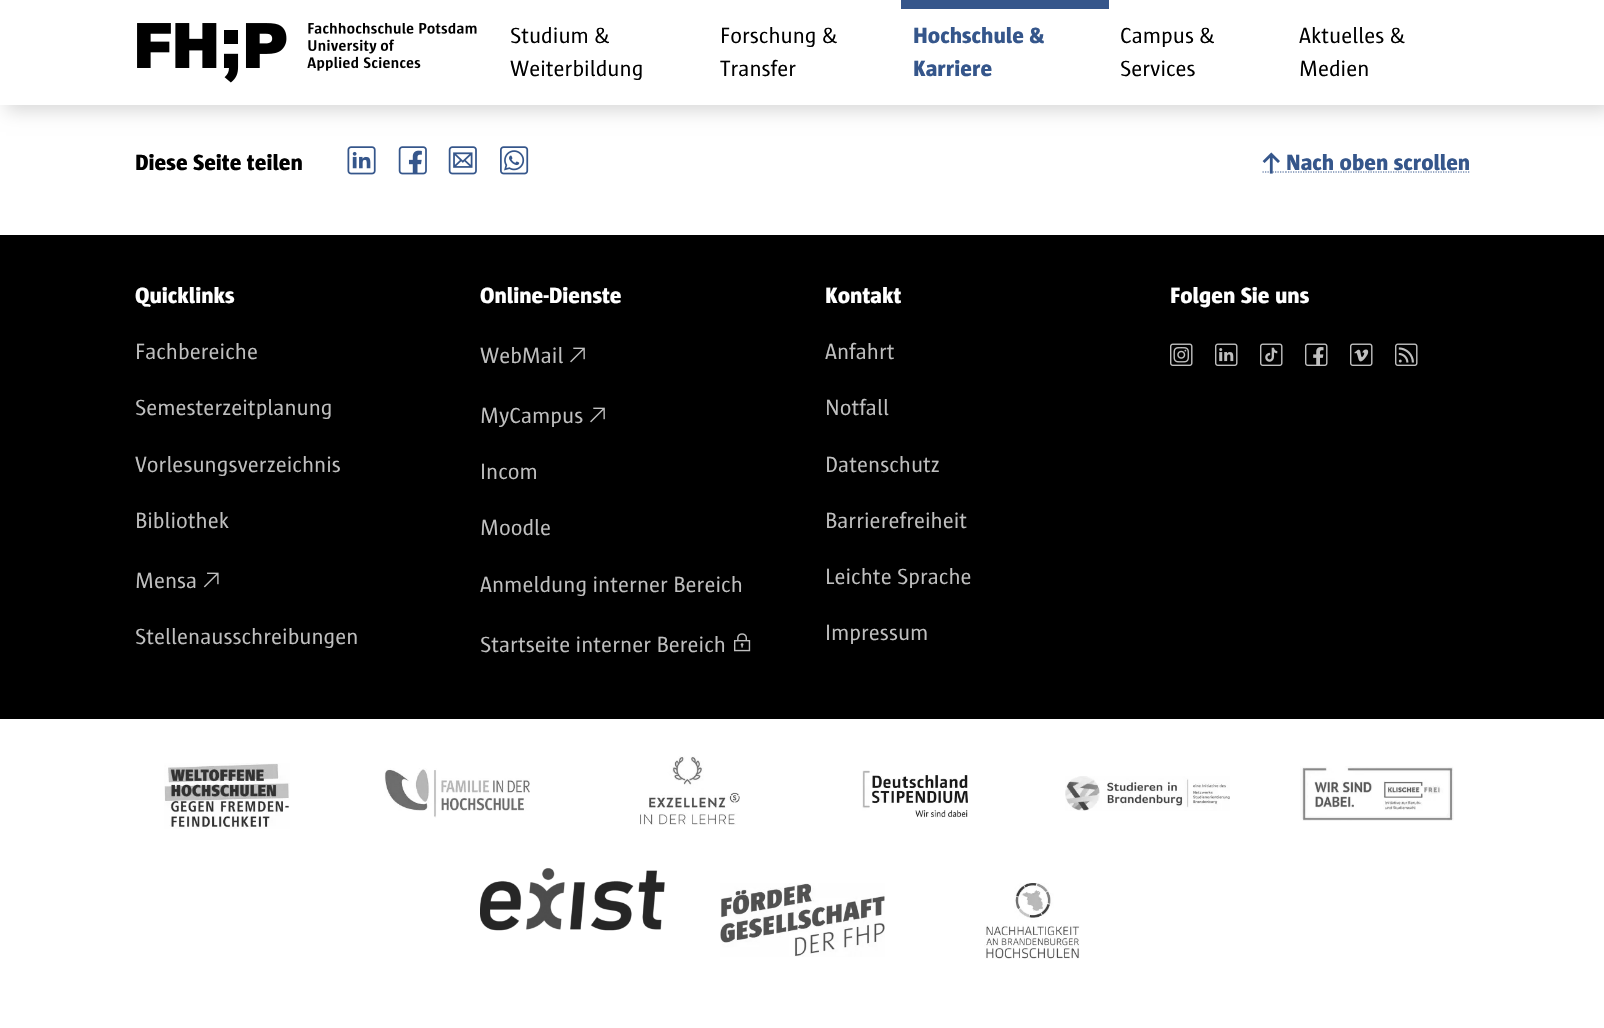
void draw(SkCanvas* canvas) {
	SkPaint fill;
	fill.setAntiAlias(true);
	auto makeFont = [&](const char* family, int weight, float size, bool italic = false) {
		SkFontStyle style(weight, SkFontStyle::kNormal_Width,
			italic ? SkFontStyle::kItalic_Slant : SkFontStyle::kUpright_Slant);
		SkFont result(fontMgr->matchFamilyStyle(family, style), size);
		result.setSubpixel(true);
		return result;
	};
	auto text = [&](const char* s, float x, float y, const SkFont& font) {
		canvas->drawString(s, x, y, font, fill);
	};
	auto box = [&](float l, float t, float r, float b) {
		canvas->drawRect(SkRect::MakeLTRB(l, t, r, b), fill);
	};
	auto picture = [&](const char* path, float l, float t, float r, float b) {
		auto image = SkImages::DeferredFromEncodedData(SkData::MakeFromFileName(path));
		canvas->drawImageRect(image, SkRect::MakeLTRB(l, t, r, b), SkSamplingOptions());
	};
	canvas->clear(0xFFFFFFFF);
	fill.setColor(0x26000000);
	fill.setMaskFilter(SkMaskFilter::MakeBlur(kNormal_SkBlurStyle, 8.5f));
	canvas->drawRect(SkRect::MakeLTRB(6, 6, 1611, 111), fill);
	fill.setMaskFilter(nullptr);
	fill.setColor(0xFFFFFFFF);
	box(0, 0, 1604, 105);
	picture("image0.png", 137, 23, 477, 83);
	fill.setColor(0xFF35568B);
	box(901, 0, 1109, 9);
	picture("image1.png", 347, 146, 376, 175);
	picture("image2.png", 398, 146, 427, 175);
	picture("image3.png", 448, 146, 477, 175);
	picture("image4.png", 500, 146, 529, 175);
	fill.setStyle(SkPaint::kStroke_Style);
	fill.setStrokeWidth(1.2f);
	fill.setPathEffect(SkDashPathEffect::Make({{1.25f, 1.25f}}, 0));
	canvas->drawPath(SkPathBuilder().moveTo(1262.5f, 172).lineTo(1285.5f, 172).detach(), fill);
	fill.setPathEffect(nullptr);
	picture("image5.png", 1262, 152, 1280, 174);
	fill.setPathEffect(SkDashPathEffect::Make({{1.25f, 1.25f}}, 0));
	canvas->drawPath(SkPathBuilder().moveTo(1285.5f, 172).lineTo(1470, 172).detach(), fill);
	fill.setPathEffect(nullptr);
	fill.setStyle(SkPaint::kFill_Style);
	fill.setColor(0xFF000000);
	box(0, 235, 1604, 719);
	picture("image6.png", 203, 572, 219, 588);
	picture("image7.png", 570, 347, 585, 363);
	picture("image7.png", 590, 407, 605, 423);
	picture("image8.png", 734, 633, 751, 652);
	picture("image9.png", 1170, 343, 1193, 366);
	picture("image10.png", 1215, 343, 1238, 366);
	picture("image11.png", 1260, 343, 1283, 366);
	picture("image12.png", 1305, 343, 1328, 366);
	picture("image13.png", 1350, 343, 1373, 366);
	picture("image14.png", 1395, 343, 1418, 366);
	picture("image15.png", 164, 763, 290, 829);
	picture("image16.png", 384, 768, 530, 818);
	picture("image17.png", 640, 756, 740, 825);
	picture("image18.png", 862, 770, 968, 818);
	picture("image19.png", 1065, 776, 1230, 811);
	picture("image20.png", 1300, 766, 1454, 821);
	picture("image21.png", 480, 868, 665, 931);
	picture("image22.png", 720, 883, 885, 957);
	picture("image23.png", 984, 883, 1080, 959);
	auto font1 = makeFont("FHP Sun", 400, 22.5f);
	text("Studium &", 510, 43, font1);
	text("Weiterbildung", 510, 76, font1);
	text("Forschung &", 720, 43, font1);
	text("Transfer", 720, 76, font1);
	auto font2 = makeFont("FHP Sun", 800, 22.5f);
	fill.setColor(0xFF35568B);
	text("Hochschule &", 913, 43, font2);
	text("Karriere", 913, 76, font2);
	fill.setColor(0xFF000000);
	text("Campus &", 1120, 43, font1);
	text("Services", 1120, 76, font1);
	text("Aktuelles &", 1299, 43, font1);
	text("Medien", 1299, 76, font1);
	text("Diese Seite teilen", 135, 170, font2);
	fill.setColor(0xFF35568B);
	text("Nach oben scrollen", 1286, 170, font2);
	fill.setColor(0xFFFFFFFF);
	text("Quicklinks", 135, 303, font2);
	fill.setColor(0xFFBFBFBF);
	text("Fachbereiche", 135, 359, font1);
	text("Semesterzeitplanung", 135, 415, font1);
	text("Vorlesungsverzeichnis", 135, 472, font1);
	text("Bibliothek", 135, 528, font1);
	text("Mensa", 135, 588, font1);
	text("Stellenausschreibungen", 135, 644, font1);
	fill.setColor(0xFFFFFFFF);
	text("Online-Dienste", 480, 303, font2);
	fill.setColor(0xFFBFBFBF);
	text("WebMail", 480, 363, font1);
	text("MyCampus", 480, 423, font1);
	text("Incom", 480, 479, font1);
	text("Moodle", 480, 535, font1);
	text("Anmeldung interner Bereich", 480, 592, font1);
	text("Startseite interner Bereich", 480, 652, font1);
	fill.setColor(0xFFFFFFFF);
	text("Kontakt", 825, 303, font2);
	fill.setColor(0xFFBFBFBF);
	text("Anfahrt", 825, 359, font1);
	text("Notfall", 825, 415, font1);
	text("Datenschutz", 825, 472, font1);
	text("Barrierefreiheit", 825, 528, font1);
	text("Leichte Sprache", 825, 584, font1);
	text("Impressum", 825, 640, font1);
	fill.setColor(0xFFFFFFFF);
	text("Folgen Sie uns", 1170, 303, font2);
}
